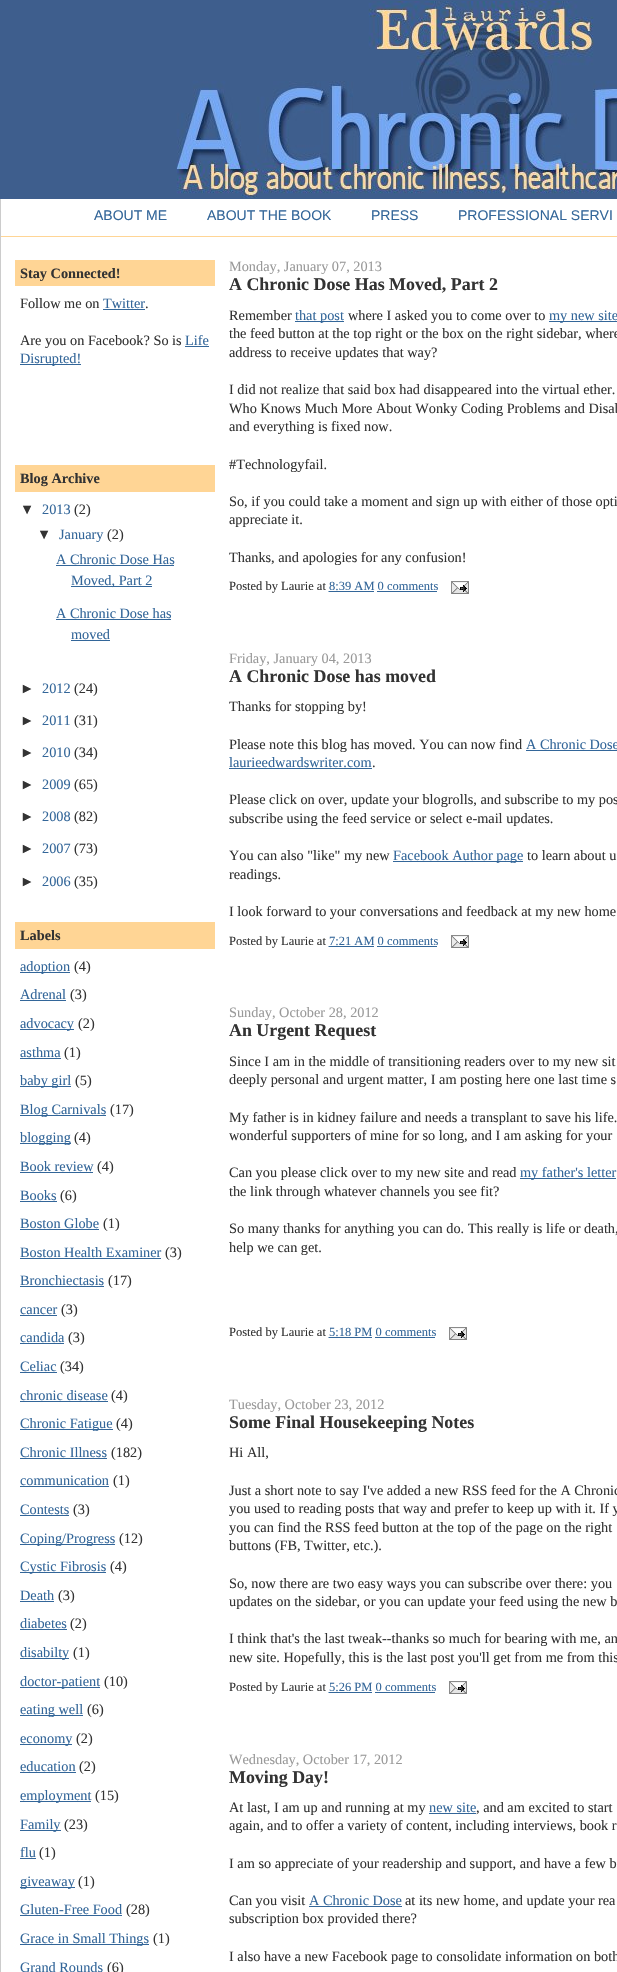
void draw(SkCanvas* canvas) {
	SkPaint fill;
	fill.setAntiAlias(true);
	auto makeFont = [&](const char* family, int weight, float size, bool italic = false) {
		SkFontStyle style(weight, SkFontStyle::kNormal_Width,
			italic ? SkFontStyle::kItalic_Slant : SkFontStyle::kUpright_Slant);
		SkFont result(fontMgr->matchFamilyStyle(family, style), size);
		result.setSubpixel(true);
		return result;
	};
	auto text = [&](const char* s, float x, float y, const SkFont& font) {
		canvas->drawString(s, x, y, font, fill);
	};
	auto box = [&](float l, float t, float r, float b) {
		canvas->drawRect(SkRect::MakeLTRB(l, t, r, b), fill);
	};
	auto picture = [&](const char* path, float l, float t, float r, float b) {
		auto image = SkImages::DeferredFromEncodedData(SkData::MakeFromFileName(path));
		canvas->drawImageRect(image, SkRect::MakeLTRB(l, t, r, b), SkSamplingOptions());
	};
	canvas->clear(0xFF3E5E8D);
	picture("image0.png", 176, 1, 617, 198);
	fill.setColor(0xFFFFFFFF);
	box(1, 199, 617, 1972);
	fill.setColor(0xFFCCCCCC);
	box(0, 199, 1, 1972);
	fill.setColor(0xFFFFD595);
	box(1, 236, 617, 237);
	box(15, 260, 215, 286);
	fill.setColor(0xFF336699);
	box(103, 309, 145, 310);
	box(185, 346, 209, 347);
	box(20, 364, 81, 365);
	fill.setColor(0xFFFFD595);
	box(15, 465, 215, 492);
	fill.setColor(0xFF336699);
	box(56, 565, 174, 566);
	box(71, 586, 152, 587);
	box(56, 619, 171, 620);
	box(71, 640, 110, 641);
	fill.setColor(0xFFFFD595);
	box(15, 922, 215, 949);
	fill.setColor(0xFF336699);
	box(20, 972, 70, 973);
	box(20, 1000, 66, 1001);
	box(20, 1029, 74, 1030);
	box(20, 1058, 61, 1059);
	box(20, 1086, 71, 1087);
	box(20, 1115, 106, 1116);
	box(20, 1143, 71, 1144);
	box(20, 1172, 93, 1173);
	box(20, 1201, 57, 1202);
	box(20, 1229, 99, 1230);
	box(20, 1258, 161, 1259);
	box(20, 1286, 104, 1287);
	box(20, 1315, 57, 1316);
	box(20, 1343, 64, 1344);
	box(20, 1372, 57, 1373);
	box(20, 1401, 108, 1402);
	box(20, 1429, 113, 1430);
	box(20, 1458, 107, 1459);
	box(20, 1486, 109, 1487);
	box(20, 1515, 69, 1516);
	box(20, 1544, 115, 1545);
	box(20, 1572, 106, 1573);
	box(20, 1601, 54, 1602);
	box(20, 1629, 67, 1630);
	box(20, 1658, 69, 1659);
	box(20, 1687, 100, 1688);
	box(20, 1715, 83, 1716);
	box(20, 1744, 72, 1745);
	box(20, 1772, 76, 1773);
	box(20, 1801, 91, 1802);
	box(20, 1830, 61, 1831);
	box(20, 1858, 36, 1859);
	box(20, 1887, 75, 1888);
	box(20, 1915, 122, 1916);
	box(20, 1944, 149, 1945);
	box(295, 321, 344, 322);
	box(549, 321, 617, 322);
	fill.setStyle(SkPaint::kStroke_Style);
	fill.setStrokeWidth(1);
	fill.setPathEffect(SkDashPathEffect::Make({{1, 1}}, 0));
	canvas->drawPath(SkPathBuilder().moveTo(328.5f, 591.5f).lineTo(374, 591.5f).detach(), fill);
	fill.setPathEffect(nullptr);
	fill.setStyle(SkPaint::kFill_Style);
	box(329, 591, 374, 592);
	picture("image1.png", 451, 581, 469, 594);
	box(377, 591, 437, 592);
	box(526, 750, 617, 751);
	box(229, 768, 372, 769);
	box(393, 861, 523, 862);
	fill.setStyle(SkPaint::kStroke_Style);
	fill.setPathEffect(SkDashPathEffect::Make({{1, 1}}, 0));
	canvas->drawPath(SkPathBuilder().moveTo(328.5f, 946.5f).lineTo(374, 946.5f).detach(), fill);
	fill.setPathEffect(nullptr);
	fill.setStyle(SkPaint::kFill_Style);
	box(329, 946, 374, 947);
	picture("image1.png", 451, 935, 469, 948);
	box(377, 946, 437, 947);
	box(520, 1178, 616, 1179);
	fill.setStyle(SkPaint::kStroke_Style);
	fill.setPathEffect(SkDashPathEffect::Make({{1, 1}}, 0));
	canvas->drawPath(SkPathBuilder().moveTo(328.5f, 1337.5f).lineTo(371.5f, 1337.5f).detach(), fill);
	fill.setPathEffect(nullptr);
	fill.setStyle(SkPaint::kFill_Style);
	box(329, 1337, 372, 1338);
	picture("image1.png", 449, 1327, 467, 1340);
	box(375, 1337, 435, 1338);
	fill.setStyle(SkPaint::kStroke_Style);
	fill.setPathEffect(SkDashPathEffect::Make({{1, 1}}, 0));
	canvas->drawPath(SkPathBuilder().moveTo(328.5f, 1692.5f).lineTo(371.5f, 1692.5f).detach(), fill);
	fill.setPathEffect(nullptr);
	fill.setStyle(SkPaint::kFill_Style);
	box(329, 1692, 372, 1693);
	picture("image1.png", 449, 1681, 467, 1694);
	box(375, 1692, 435, 1693);
	box(429, 1813, 476, 1814);
	box(309, 1906, 402, 1907);
	auto font1 = makeFont("Liberation Sans", 400, 14);
	text("ABOUT ME", 94, 220, font1);
	text("ABOUT THE BOOK", 207, 220, font1);
	text("PRESS", 371, 220, font1);
	text("PROFESSIONAL SERVI", 458, 220, font1);
	auto font2 = makeFont("Liberation Serif", 700, 14.3f);
	fill.setColor(0xFF333333);
	text("Stay Connected!", 20, 278, font2);
	auto font3 = makeFont("Liberation Serif", 400, 14.3f);
	text("Follow me on", 20, 308, font3);
	fill.setColor(0xFF336699);
	text("Twitter", 103, 308, font3);
	fill.setColor(0xFF333333);
	text(".", 145, 308, font3);
	text("Are you on Facebook? So is", 20, 345, font3);
	fill.setColor(0xFF336699);
	text("Life", 185, 345, font3);
	text("Disrupted!", 20, 363, font3);
	fill.setColor(0xFF333333);
	text("Blog Archive", 20, 483, font2);
	auto font4 = makeFont("Liberation Sans", 400, 14.3f);
	text("▼", 20, 514, font4);
	fill.setColor(0xFF336699);
	text("2013", 42, 514, font3);
	fill.setColor(0xFF333333);
	text("(2)", 74, 514, font3);
	text("▼", 37, 539, font4);
	fill.setColor(0xFF336699);
	text("January", 59, 539, font3);
	fill.setColor(0xFF333333);
	text("(2)", 107, 539, font3);
	fill.setColor(0xFF336699);
	text("A Chronic Dose Has", 56, 564, font3);
	text("Moved, Part 2", 71, 585, font3);
	text("A Chronic Dose has", 56, 618, font3);
	text("moved", 71, 639, font3);
	fill.setColor(0xFF333333);
	text("►", 20, 693, font4);
	fill.setColor(0xFF336699);
	text("2012", 42, 693, font3);
	fill.setColor(0xFF333333);
	text("(24)", 74, 693, font3);
	text("►", 20, 725, font4);
	fill.setColor(0xFF336699);
	text("2011", 42, 725, font3);
	fill.setColor(0xFF333333);
	text("(31)", 74, 725, font3);
	text("►", 20, 757, font4);
	fill.setColor(0xFF336699);
	text("2010", 42, 757, font3);
	fill.setColor(0xFF333333);
	text("(34)", 74, 757, font3);
	text("►", 20, 789, font4);
	fill.setColor(0xFF336699);
	text("2009", 42, 789, font3);
	fill.setColor(0xFF333333);
	text("(65)", 74, 789, font3);
	text("►", 20, 821, font4);
	fill.setColor(0xFF336699);
	text("2008", 42, 821, font3);
	fill.setColor(0xFF333333);
	text("(82)", 74, 821, font3);
	text("►", 20, 853, font4);
	fill.setColor(0xFF336699);
	text("2007", 42, 853, font3);
	fill.setColor(0xFF333333);
	text("(73)", 74, 853, font3);
	text("►", 20, 886, font4);
	fill.setColor(0xFF336699);
	text("2006", 42, 886, font3);
	fill.setColor(0xFF333333);
	text("(35)", 74, 886, font3);
	text("Labels", 20, 940, font2);
	fill.setColor(0xFF336699);
	text("adoption", 20, 971, font3);
	fill.setColor(0xFF333333);
	text("(4)", 74, 971, font3);
	fill.setColor(0xFF336699);
	text("Adrenal", 20, 999, font3);
	fill.setColor(0xFF333333);
	text("(3)", 70, 999, font3);
	fill.setColor(0xFF336699);
	text("advocacy", 20, 1028, font3);
	fill.setColor(0xFF333333);
	text("(2)", 78, 1028, font3);
	fill.setColor(0xFF336699);
	text("asthma", 20, 1057, font3);
	fill.setColor(0xFF333333);
	text("(1)", 64, 1057, font3);
	fill.setColor(0xFF336699);
	text("baby girl", 20, 1085, font3);
	fill.setColor(0xFF333333);
	text("(5)", 75, 1085, font3);
	fill.setColor(0xFF336699);
	text("Blog Carnivals", 20, 1114, font3);
	fill.setColor(0xFF333333);
	text("(17)", 110, 1114, font3);
	fill.setColor(0xFF336699);
	text("blogging", 20, 1142, font3);
	fill.setColor(0xFF333333);
	text("(4)", 74, 1142, font3);
	fill.setColor(0xFF336699);
	text("Book review", 20, 1171, font3);
	fill.setColor(0xFF333333);
	text("(4)", 97, 1171, font3);
	fill.setColor(0xFF336699);
	text("Books", 20, 1200, font3);
	fill.setColor(0xFF333333);
	text("(6)", 60, 1200, font3);
	fill.setColor(0xFF336699);
	text("Boston Globe", 20, 1228, font3);
	fill.setColor(0xFF333333);
	text("(1)", 103, 1228, font3);
	fill.setColor(0xFF336699);
	text("Boston Health Examiner", 20, 1257, font3);
	fill.setColor(0xFF333333);
	text("(3)", 165, 1257, font3);
	fill.setColor(0xFF336699);
	text("Bronchiectasis", 20, 1285, font3);
	fill.setColor(0xFF333333);
	text("(17)", 108, 1285, font3);
	fill.setColor(0xFF336699);
	text("cancer", 20, 1314, font3);
	fill.setColor(0xFF333333);
	text("(3)", 61, 1314, font3);
	fill.setColor(0xFF336699);
	text("candida", 20, 1342, font3);
	fill.setColor(0xFF333333);
	text("(3)", 68, 1342, font3);
	fill.setColor(0xFF336699);
	text("Celiac", 20, 1371, font3);
	fill.setColor(0xFF333333);
	text("(34)", 60, 1371, font3);
	fill.setColor(0xFF336699);
	text("chronic disease", 20, 1400, font3);
	fill.setColor(0xFF333333);
	text("(4)", 111, 1400, font3);
	fill.setColor(0xFF336699);
	text("Chronic Fatigue", 20, 1428, font3);
	fill.setColor(0xFF333333);
	text("(4)", 116, 1428, font3);
	fill.setColor(0xFF336699);
	text("Chronic Illness", 20, 1457, font3);
	fill.setColor(0xFF333333);
	text("(182)", 111, 1457, font3);
	fill.setColor(0xFF336699);
	text("communication", 20, 1485, font3);
	fill.setColor(0xFF333333);
	text("(1)", 113, 1485, font3);
	fill.setColor(0xFF336699);
	text("Contests", 20, 1514, font3);
	fill.setColor(0xFF333333);
	text("(3)", 73, 1514, font3);
	fill.setColor(0xFF336699);
	text("Coping/Progress", 20, 1543, font3);
	fill.setColor(0xFF333333);
	text("(12)", 119, 1543, font3);
	fill.setColor(0xFF336699);
	text("Cystic Fibrosis", 20, 1571, font3);
	fill.setColor(0xFF333333);
	text("(4)", 110, 1571, font3);
	fill.setColor(0xFF336699);
	text("Death", 20, 1600, font3);
	fill.setColor(0xFF333333);
	text("(3)", 58, 1600, font3);
	fill.setColor(0xFF336699);
	text("diabetes", 20, 1628, font3);
	fill.setColor(0xFF333333);
	text("(2)", 70, 1628, font3);
	fill.setColor(0xFF336699);
	text("disabilty", 20, 1657, font3);
	fill.setColor(0xFF333333);
	text("(1)", 73, 1657, font3);
	fill.setColor(0xFF336699);
	text("doctor-patient", 20, 1686, font3);
	fill.setColor(0xFF333333);
	text("(10)", 104, 1686, font3);
	fill.setColor(0xFF336699);
	text("eating well", 20, 1714, font3);
	fill.setColor(0xFF333333);
	text("(6)", 87, 1714, font3);
	fill.setColor(0xFF336699);
	text("economy", 20, 1743, font3);
	fill.setColor(0xFF333333);
	text("(2)", 76, 1743, font3);
	fill.setColor(0xFF336699);
	text("education", 20, 1771, font3);
	fill.setColor(0xFF333333);
	text("(2)", 79, 1771, font3);
	fill.setColor(0xFF336699);
	text("employment", 20, 1800, font3);
	fill.setColor(0xFF333333);
	text("(15)", 95, 1800, font3);
	fill.setColor(0xFF336699);
	text("Family", 20, 1829, font3);
	fill.setColor(0xFF333333);
	text("(23)", 64, 1829, font3);
	fill.setColor(0xFF336699);
	text("flu", 20, 1857, font3);
	fill.setColor(0xFF333333);
	text("(1)", 39, 1857, font3);
	fill.setColor(0xFF336699);
	text("giveaway", 20, 1886, font3);
	fill.setColor(0xFF333333);
	text("(1)", 78, 1886, font3);
	fill.setColor(0xFF336699);
	text("Gluten-Free Food", 20, 1914, font3);
	fill.setColor(0xFF333333);
	text("(28)", 126, 1914, font3);
	fill.setColor(0xFF336699);
	text("Grace in Small Things", 20, 1943, font3);
	fill.setColor(0xFF333333);
	text("(1)", 153, 1943, font3);
	fill.setColor(0xFF336699);
	text("Grand Rounds", 20, 1972, font3);
	fill.setColor(0xFF333333);
	text("(6)", 107, 1972, font3);
	fill.setColor(0xFF999999);
	text("Monday, January 07, 2013", 229, 271, font3);
	auto font5 = makeFont("Liberation Serif", 700, 17.9f);
	fill.setColor(0xFF333333);
	text("A Chronic Dose Has Moved, Part 2", 229, 290, font5);
	text("Remember", 229, 320, font3);
	fill.setColor(0xFF336699);
	text("that post", 295, 320, font3);
	fill.setColor(0xFF333333);
	text("where I asked you to come over to", 348, 320, font3);
	fill.setColor(0xFF336699);
	text("my new site", 549, 320, font3);
	fill.setColor(0xFF333333);
	text("the feed button at the top right or the box on the right sidebar, where", 229, 338, font3);
	text("address to receive updates that way?", 229, 357, font3);
	text("I did not realize that said box had disappeared into the virtual ether.", 229, 394, font3);
	text("Who Knows Much More About Wonky Coding Problems and Disab", 229, 413, font3);
	text("and everything is fixed now.", 229, 431, font3);
	text("#Technologyfail.", 229, 469, font3);
	text("So, if you could take a moment and sign up with either of those opti", 229, 506, font3);
	text("appreciate it.", 229, 524, font3);
	text("Thanks, and apologies for any confusion!", 229, 562, font3);
	auto font6 = makeFont("Liberation Serif", 400, 12.5f);
	text("Posted by Laurie at", 229, 590, font6);
	fill.setColor(0xFF336699);
	text("8:39 AM 0 comments", 329, 590, font6);
	fill.setColor(0xFF999999);
	text("Friday, January 04, 2013", 229, 663, font3);
	fill.setColor(0xFF333333);
	text("A Chronic Dose has moved", 229, 682, font5);
	text("Thanks for stopping by!", 229, 711, font3);
	text("Please note this blog has moved. You can now find", 229, 749, font3);
	fill.setColor(0xFF336699);
	text("A Chronic Dose", 526, 749, font3);
	text("laurieedwardswriter.com", 229, 767, font3);
	fill.setColor(0xFF333333);
	text(".", 372, 767, font3);
	text("Please click on over, update your blogrolls, and subscribe to my pos", 229, 804, font3);
	text("subscribe using the feed service or select e-mail updates.", 229, 823, font3);
	text("You can also \"like\" my new", 229, 860, font3);
	fill.setColor(0xFF336699);
	text("Facebook Author page", 393, 860, font3);
	fill.setColor(0xFF333333);
	text("to learn about u", 527, 860, font3);
	text("readings.", 229, 879, font3);
	text("I look forward to your conversations and feedback at my new home", 229, 916, font3);
	text("Posted by Laurie at", 229, 945, font6);
	fill.setColor(0xFF336699);
	text("7:21 AM 0 comments", 329, 945, font6);
	fill.setColor(0xFF999999);
	text("Sunday, October 28, 2012", 229, 1017, font3);
	fill.setColor(0xFF333333);
	text("An Urgent Request", 229, 1036, font5);
	text("Since I am in the middle of transitioning readers over to my new sit", 229, 1066, font3);
	text("deeply personal and urgent matter, I am posting here one last time s", 229, 1084, font3);
	text("My father is in kidney failure and needs a transplant to save his life.", 229, 1122, font3);
	text("wonderful supporters of mine for so long, and I am asking for your", 229, 1140, font3);
	text("Can you please click over to my new site and read", 229, 1177, font3);
	fill.setColor(0xFF336699);
	text("my father's letter", 520, 1177, font3);
	fill.setColor(0xFF333333);
	text("the link through whatever channels you see fit?", 229, 1196, font3);
	text("So many thanks for anything you can do. This really is life or death,", 229, 1233, font3);
	text("help we can get.", 229, 1252, font3);
	text("Posted by Laurie at", 229, 1336, font6);
	fill.setColor(0xFF336699);
	text("5:18 PM 0 comments", 329, 1336, font6);
	fill.setColor(0xFF999999);
	text("Tuesday, October 23, 2012", 229, 1409, font3);
	fill.setColor(0xFF333333);
	text("Some Final Housekeeping Notes", 229, 1428, font5);
	text("Hi All,", 229, 1457, font3);
	text("Just a short note to say I've added a new RSS feed for the A Chronic", 229, 1495, font3);
	text("you used to reading posts that way and prefer to keep up with it. If y", 229, 1513, font3);
	text("you can find the RSS feed button at the top of the page on the right", 229, 1532, font3);
	text("buttons (FB, Twitter, etc.).", 229, 1550, font3);
	text("So, now there are two easy ways you can subscribe over there: you", 229, 1588, font3);
	text("updates on the sidebar, or you can update your feed using the new b", 229, 1606, font3);
	text("I think that's the last tweak--thanks so much for bearing with me, an", 229, 1643, font3);
	text("new site. Hopefully, this is the last post you'll get from me from this", 229, 1662, font3);
	text("Posted by Laurie at", 229, 1691, font6);
	fill.setColor(0xFF336699);
	text("5:26 PM 0 comments", 329, 1691, font6);
	fill.setColor(0xFF999999);
	text("Wednesday, October 17, 2012", 229, 1764, font3);
	fill.setColor(0xFF333333);
	text("Moving Day!", 229, 1783, font5);
	text("At last, I am up and running at my", 229, 1812, font3);
	fill.setColor(0xFF336699);
	text("new site", 429, 1812, font3);
	fill.setColor(0xFF333333);
	text(", and am excited to start", 476, 1812, font3);
	text("again, and to offer a variety of content, including interviews, book r", 229, 1830, font3);
	text("I am so appreciate of your readership and support, and have a few b", 229, 1868, font3);
	text("Can you visit", 229, 1905, font3);
	fill.setColor(0xFF336699);
	text("A Chronic Dose", 309, 1905, font3);
	fill.setColor(0xFF333333);
	text("at its new home, and update your rea", 405, 1905, font3);
	text("subscription box provided there?", 229, 1923, font3);
	text("I also have a new Facebook page to consolidate information on both", 229, 1961, font3);
}
